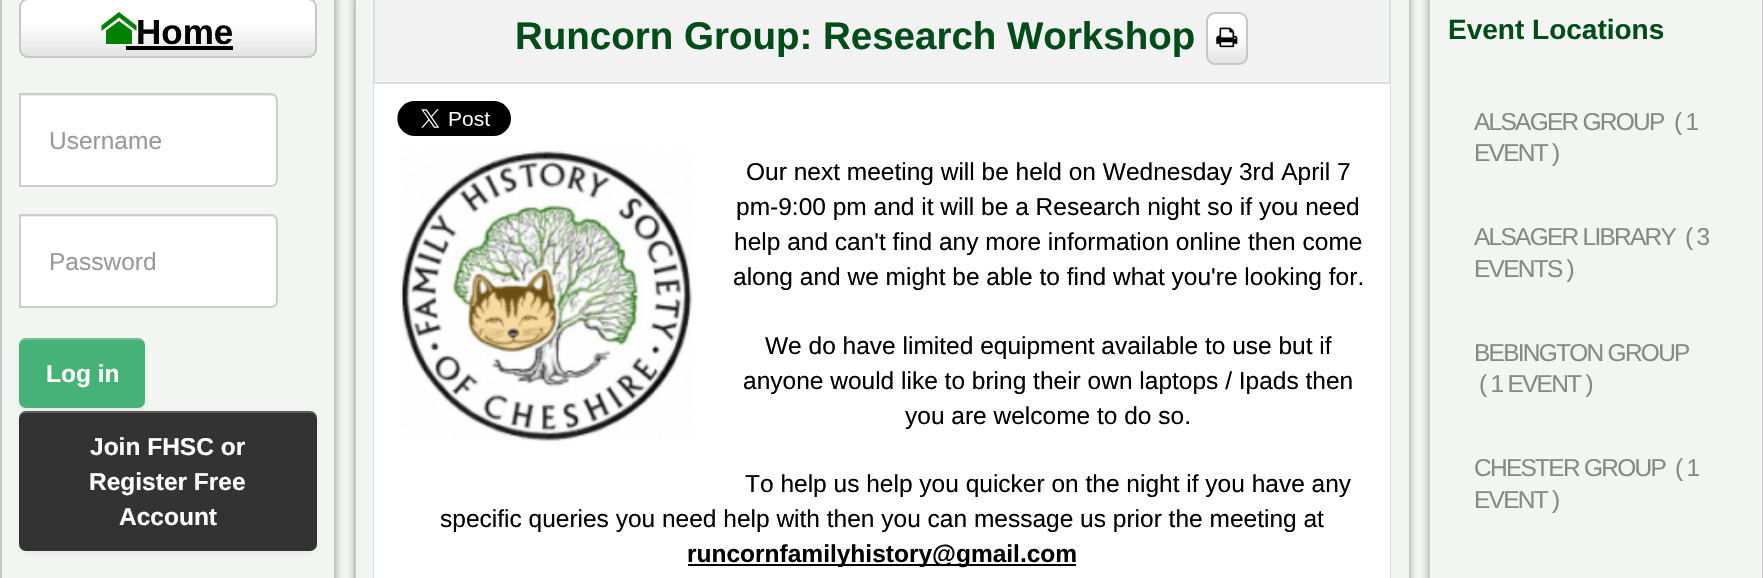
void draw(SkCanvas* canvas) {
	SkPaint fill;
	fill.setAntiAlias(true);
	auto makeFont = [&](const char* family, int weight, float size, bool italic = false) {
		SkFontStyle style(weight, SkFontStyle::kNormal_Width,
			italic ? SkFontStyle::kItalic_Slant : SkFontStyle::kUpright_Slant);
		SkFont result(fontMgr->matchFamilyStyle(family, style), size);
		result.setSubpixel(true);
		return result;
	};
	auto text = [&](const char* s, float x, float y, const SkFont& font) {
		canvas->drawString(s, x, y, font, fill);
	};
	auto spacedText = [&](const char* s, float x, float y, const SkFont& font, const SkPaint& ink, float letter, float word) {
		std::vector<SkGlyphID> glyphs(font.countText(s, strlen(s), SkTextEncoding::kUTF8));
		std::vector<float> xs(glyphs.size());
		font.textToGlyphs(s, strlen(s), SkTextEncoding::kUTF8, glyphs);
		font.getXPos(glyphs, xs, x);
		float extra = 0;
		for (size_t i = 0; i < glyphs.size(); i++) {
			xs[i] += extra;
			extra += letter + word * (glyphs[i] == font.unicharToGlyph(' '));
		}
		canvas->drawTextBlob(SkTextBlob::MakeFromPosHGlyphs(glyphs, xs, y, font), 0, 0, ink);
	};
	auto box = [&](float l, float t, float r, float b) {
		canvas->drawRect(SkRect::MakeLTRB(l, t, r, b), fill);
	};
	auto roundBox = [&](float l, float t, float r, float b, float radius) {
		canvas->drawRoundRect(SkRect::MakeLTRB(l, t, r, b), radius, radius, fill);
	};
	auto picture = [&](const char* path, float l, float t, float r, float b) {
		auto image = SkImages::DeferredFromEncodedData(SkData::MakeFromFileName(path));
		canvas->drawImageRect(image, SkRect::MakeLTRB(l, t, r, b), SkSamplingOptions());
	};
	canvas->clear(0xFFF2F5F2);
	canvas->save();
	canvas->clipRect(SkRect::MakeLTRB(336, 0, 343, 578));
	fill.setColor(0xFFC7C7C7);
	fill.setMaskFilter(SkMaskFilter::MakeBlur(kNormal_SkBlurStyle, 2.5f));
	canvas->drawRoundRect(SkRect::MakeLTRB(-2, -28, 338, 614), 28, 28, fill);
	fill.setMaskFilter(nullptr);
	canvas->restore();
	fill.setStyle(SkPaint::kStroke_Style);
	fill.setStrokeWidth(2);
	canvas->drawRect(SkRect::MakeLTRB(1, -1, 335, 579), fill);
	canvas->save();
	canvas->clipPath(SkPathBuilder().moveTo(28, -2).lineTo(308, -2).cubicTo(313, -2, 317, 2, 317, 7).lineTo(317, 49).cubicTo(317, 54, 313, 58, 308, 58).lineTo(28, 58).cubicTo(23, 58, 19, 54, 19, 49).lineTo(19, 7).cubicTo(19, 2, 23, -2, 28, -2).close().detach(), true);
	fill.setStyle(SkPaint::kFill_Style);
	{
		const SkColor colors[] = {0xFFFFFFFF, 0xFFFFFFFF, 0xFFE3E3E3};
		const float stops[] = {0, 0.4f, 1};
		const SkPoint ends[] = {{21, 0}, {21, 56}};
		fill.setShader(SkGradientShader::MakeLinear(ends, colors, stops, 3, SkTileMode::kClamp));
		fill.setAlpha(255);
	}
	box(19, 0, 317, 56);
	canvas->restore();
	fill.setStyle(SkPaint::kStroke_Style);
	fill.setShader(nullptr);
	fill.setColor(0xFFC7C7C7);
	canvas->drawRoundRect(SkRect::MakeLTRB(20, -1, 316, 57), 8, 8, fill);
	fill.setStyle(SkPaint::kFill_Style);
	fill.setColor(0xFF008000);
	canvas->drawPath(SkPathBuilder().moveTo(136.5f, 31).lineTo(136.5f, 25.5f).lineTo(119, 12).lineTo(101.5f, 25.5f).lineTo(101.5f, 31).lineTo(119, 17.5f).close().moveTo(132, 30.5f).lineTo(119, 21).lineTo(106, 30.5f).lineTo(106, 44).lineTo(132, 44).close().detach(), fill);
	fill.setColor(0xFF000000);
	box(126, 46, 233, 50);
	fill.setColor(0xFFFFFFFF);
	canvas->drawPath(SkPathBuilder().moveTo(19, 93).lineTo(271, 93).cubicTo(275, 93, 278, 96, 278, 100).lineTo(278, 180).cubicTo(278, 184, 275, 187, 271, 187).lineTo(19, 187).close().detach(), fill);
	fill.setColor(0xFFECECEC);
	canvas->drawPath(SkPathBuilder().moveTo(21, 96).lineTo(271, 96).cubicTo(274, 96, 276, 99, 276, 102).lineTo(276, 182).lineTo(275, 185).cubicTo(276, 184, 277, 182, 277, 181).lineTo(277, 100).cubicTo(277, 97, 275, 95, 272, 95).lineTo(21, 95).close().detach(), fill);
	fill.setStyle(SkPaint::kStroke_Style);
	fill.setColor(0xFFCCCCCC);
	canvas->drawPath(SkPathBuilder().moveTo(20, 94).lineTo(271, 94).cubicTo(274.5f, 94, 277, 96.5f, 277, 100).lineTo(277, 180).cubicTo(277, 183.5f, 274.5f, 186, 271, 186).lineTo(20, 186).close().detach(), fill);
	fill.setStyle(SkPaint::kFill_Style);
	fill.setColor(0xFFFFFFFF);
	canvas->drawPath(SkPathBuilder().moveTo(19, 214).lineTo(271, 214).cubicTo(275, 214, 278, 217, 278, 221).lineTo(278, 301).cubicTo(278, 305, 275, 308, 271, 308).lineTo(19, 308).close().detach(), fill);
	fill.setColor(0xFFECECEC);
	canvas->drawPath(SkPathBuilder().moveTo(21, 217).lineTo(271, 217).cubicTo(274, 217, 276, 219, 276, 222).lineTo(276, 304).cubicTo(277, 303, 277, 302, 277, 301).lineTo(277, 220).cubicTo(277, 217, 275, 215, 272, 215).lineTo(21, 215).close().detach(), fill);
	fill.setStyle(SkPaint::kStroke_Style);
	fill.setColor(0xFFCCCCCC);
	canvas->drawPath(SkPathBuilder().moveTo(20, 215).lineTo(271, 215).cubicTo(274.5f, 215, 277, 217.5f, 277, 221).lineTo(277, 301).cubicTo(277, 304.5f, 274.5f, 307, 271, 307).lineTo(20, 307).close().detach(), fill);
	fill.setStyle(SkPaint::kFill_Style);
	fill.setColor(0x0D000000);
	fill.setMaskFilter(SkMaskFilter::MakeBlur(kNormal_SkBlurStyle, 2));
	canvas->drawRoundRect(SkRect::MakeLTRB(19, 340, 145, 410), 7, 7, fill);
	fill.setMaskFilter(nullptr);
	fill.setColor(0xFF46B277);
	roundBox(19, 338, 145, 408, 7);
	fill.setColor(0x33FFFFFF);
	canvas->drawPath(SkPathBuilder().moveTo(26, 340).lineTo(138, 340).cubicTo(142, 340, 145, 343, 145, 346).cubicTo(145, 333, 126, 338, 119, 338).lineTo(45, 338).cubicTo(38, 338, 19, 333, 19, 346).cubicTo(19, 343, 22, 340, 26, 340).close().detach(), fill);
	fill.setColor(0x0D000000);
	fill.setMaskFilter(SkMaskFilter::MakeBlur(kNormal_SkBlurStyle, 2));
	canvas->drawRoundRect(SkRect::MakeLTRB(19, 413, 317, 553), 7, 7, fill);
	fill.setMaskFilter(nullptr);
	fill.setColor(0xFF333333);
	roundBox(19, 411, 317, 551, 7);
	fill.setColor(0x33FFFFFF);
	canvas->drawPath(SkPathBuilder().moveTo(26, 413).lineTo(310, 413).cubicTo(314, 413, 317, 416, 317, 420).cubicTo(317, 416, 316, 412, 311, 411).lineTo(25, 411).cubicTo(20, 412, 19, 416, 19, 420).cubicTo(19, 416, 22, 413, 26, 413).close().detach(), fill);
	fill.setColor(0xFFC7C7C7);
	fill.setMaskFilter(SkMaskFilter::MakeBlur(kNormal_SkBlurStyle, 2.5f));
	canvas->drawRoundRect(SkRect::MakeLTRB(352, -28, 1412, 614), 28, 28, fill);
	fill.setMaskFilter(nullptr);
	fill.setColor(0xFFF2F5F2);
	canvas->drawRect(SkRect::MakeLTRB(355, -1, 1410, 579), fill);
	fill.setStyle(SkPaint::kStroke_Style);
	fill.setColor(0xFFC7C7C7);
	canvas->drawRect(SkRect::MakeLTRB(355, -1, 1410, 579), fill);
	fill.setStyle(SkPaint::kFill_Style);
	fill.setColor(0xFFF2F2F2);
	canvas->drawPath(SkPathBuilder().moveTo(385, -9).lineTo(1379, -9).cubicTo(1385, -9, 1390, -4, 1390, 2).lineTo(1390, 83).lineTo(374, 83).lineTo(374, 2).cubicTo(374, -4, 379, -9, 385, -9).close().detach(), fill);
	fill.setStyle(SkPaint::kStroke_Style);
	fill.setColor(0xFFDBDEE1);
	canvas->drawPath(SkPathBuilder().moveTo(385, -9).lineTo(1379, -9).cubicTo(1385, -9, 1390, -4, 1390, 2).lineTo(1390, 83).lineTo(374, 83).lineTo(374, 2).cubicTo(374, -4, 379, -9, 385, -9).close().detach(), fill);
	canvas->save();
	canvas->clipPath(SkPathBuilder().moveTo(1215, 12).lineTo(1239, 12).cubicTo(1244, 12, 1248, 16, 1248, 21).lineTo(1248, 56).cubicTo(1248, 61, 1244, 65, 1239, 65).lineTo(1215, 65).cubicTo(1210, 65, 1206, 61, 1206, 56).lineTo(1206, 21).cubicTo(1206, 16, 1210, 12, 1215, 12).close().detach(), true);
	fill.setStyle(SkPaint::kFill_Style);
	{
		const SkColor colors[] = {0xFFFFFFFF, 0xFFFFFFFF, 0xFFE3E3E3};
		const float stops[] = {0, 0.4f, 1};
		const SkPoint ends[] = {{1208, 14}, {1208, 63}};
		fill.setShader(SkGradientShader::MakeLinear(ends, colors, stops, 3, SkTileMode::kClamp));
		fill.setAlpha(255);
	}
	box(1206, 14, 1248, 63);
	canvas->restore();
	fill.setStyle(SkPaint::kStroke_Style);
	fill.setShader(nullptr);
	fill.setColor(0xFFC7C7C7);
	canvas->drawRoundRect(SkRect::MakeLTRB(1207, 13, 1247, 64), 8, 8, fill);
	picture("image0.png", 1216, 27, 1238, 48);
	fill.setStyle(SkPaint::kFill_Style);
	fill.setColor(0xFFFFFFFF);
	box(374, 84, 1390, 578);
	fill.setColor(0xFFDBDEE1);
	canvas->drawPath(SkPathBuilder(SkPathFillType::kEvenOdd).moveTo(373, 84).lineTo(1391, 84).lineTo(1391, 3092).cubicTo(1391, 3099, 1386, 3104, 1379, 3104).lineTo(385, 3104).cubicTo(378, 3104, 373, 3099, 373, 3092).close().moveTo(374, 84).lineTo(1390, 84).lineTo(1390, 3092).cubicTo(1390, 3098, 1385, 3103, 1379, 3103).lineTo(385, 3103).cubicTo(379, 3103, 374, 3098, 374, 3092).close().detach(), fill);
	picture("image1.png", 397, 101, 511, 136);
	picture("image2.png", 400, 150, 692, 441);
	fill.setColor(0xFF000000);
	box(688, 564, 1076, 566);
	canvas->save();
	canvas->clipRect(SkRect::MakeLTRB(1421, 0, 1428, 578));
	fill.setColor(0xFFC7C7C7);
	fill.setMaskFilter(SkMaskFilter::MakeBlur(kNormal_SkBlurStyle, 2.5f));
	canvas->drawRoundRect(SkRect::MakeLTRB(1426, -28, 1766, 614), 28, 28, fill);
	fill.setMaskFilter(nullptr);
	canvas->restore();
	fill.setStyle(SkPaint::kStroke_Style);
	canvas->drawRect(SkRect::MakeLTRB(1429, -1, 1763, 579), fill);
	auto font1 = makeFont("Liberation Sans", 700, 35);
	fill.setStyle(SkPaint::kFill_Style);
	fill.setColor(0xFF000000);
	text("Home", 136, 44, font1);
	auto font2 = makeFont("Liberation Sans", 400, 24.5f);
	fill.setColor(0xFF999999);
	text("Username", 49, 149, font2);
	text("Password", 49, 270, font2);
	auto font3 = makeFont("Liberation Sans", 700, 24.5f);
	fill.setColor(0xFFFFFFFF);
	text("Log in", 46, 382, font3);
	text("Join FHSC or", 90, 455, font3);
	text("Register Free", 89, 490, font3);
	text("Account", 119, 525, font3);
	auto font4 = makeFont("Liberation Sans", 700, 38.5f);
	fill.setColor(0xFF004D1A);
	text("Runcorn Group: Research Workshop", 515, 49, font4);
	fill.setColor(0xFF000000);
	text("Our next meeting will be held on Wednesday 3rd April 7", 746, 180, font2);
	text("pm-9:00 pm and it will be a Research night so if you need", 736, 215, font2);
	text("help and can't find any more information online then come", 734, 250, font2);
	text("along and we might be able to find what you're looking for.", 733, 285, font2);
	text("We do have limited equipment available to use but if", 765, 354, font2);
	text("anyone would like to bring their own laptops / Ipads then", 743, 389, font2);
	text("you are welcome to do so.", 905, 424, font2);
	text("To help us help you quicker on the night if you have any", 745, 492, font2);
	text("specific queries you need help with then you can message us prior the meeting at", 440, 527, font2);
	text("runcornfamilyhistory@gmail.com", 687, 562, font3);
	auto font5 = makeFont("Liberation Sans", 700, 28);
	fill.setColor(0xFF004D1A);
	text("Event Locations", 1448, 39, font5);
	fill.setColor(0xFF888888);
	spacedText("ALSAGER GROUP", 1474, 130, font2, fill, -1.75f, 0);
	spacedText("( 1", 1674, 130, font2, fill, -1.75f, 0);
	spacedText("EVENT )", 1474, 161, font2, fill, -1.75f, 0);
	spacedText("ALSAGER LIBRARY", 1474, 245, font2, fill, -1.75f, 0);
	spacedText("( 3", 1685, 245, font2, fill, -1.75f, 0);
	spacedText("EVENTS )", 1474, 277, font2, fill, -1.75f, 0);
	spacedText("BEBINGTON GROUP", 1474, 361, font2, fill, -1.75f, 0);
	spacedText("( 1 EVENT )", 1479, 392, font2, fill, -1.75f, 0);
	spacedText("CHESTER GROUP", 1474, 476, font2, fill, -1.75f, 0);
	spacedText("( 1", 1675, 476, font2, fill, -1.75f, 0);
	spacedText("EVENT )", 1474, 508, font2, fill, -1.75f, 0);
}
